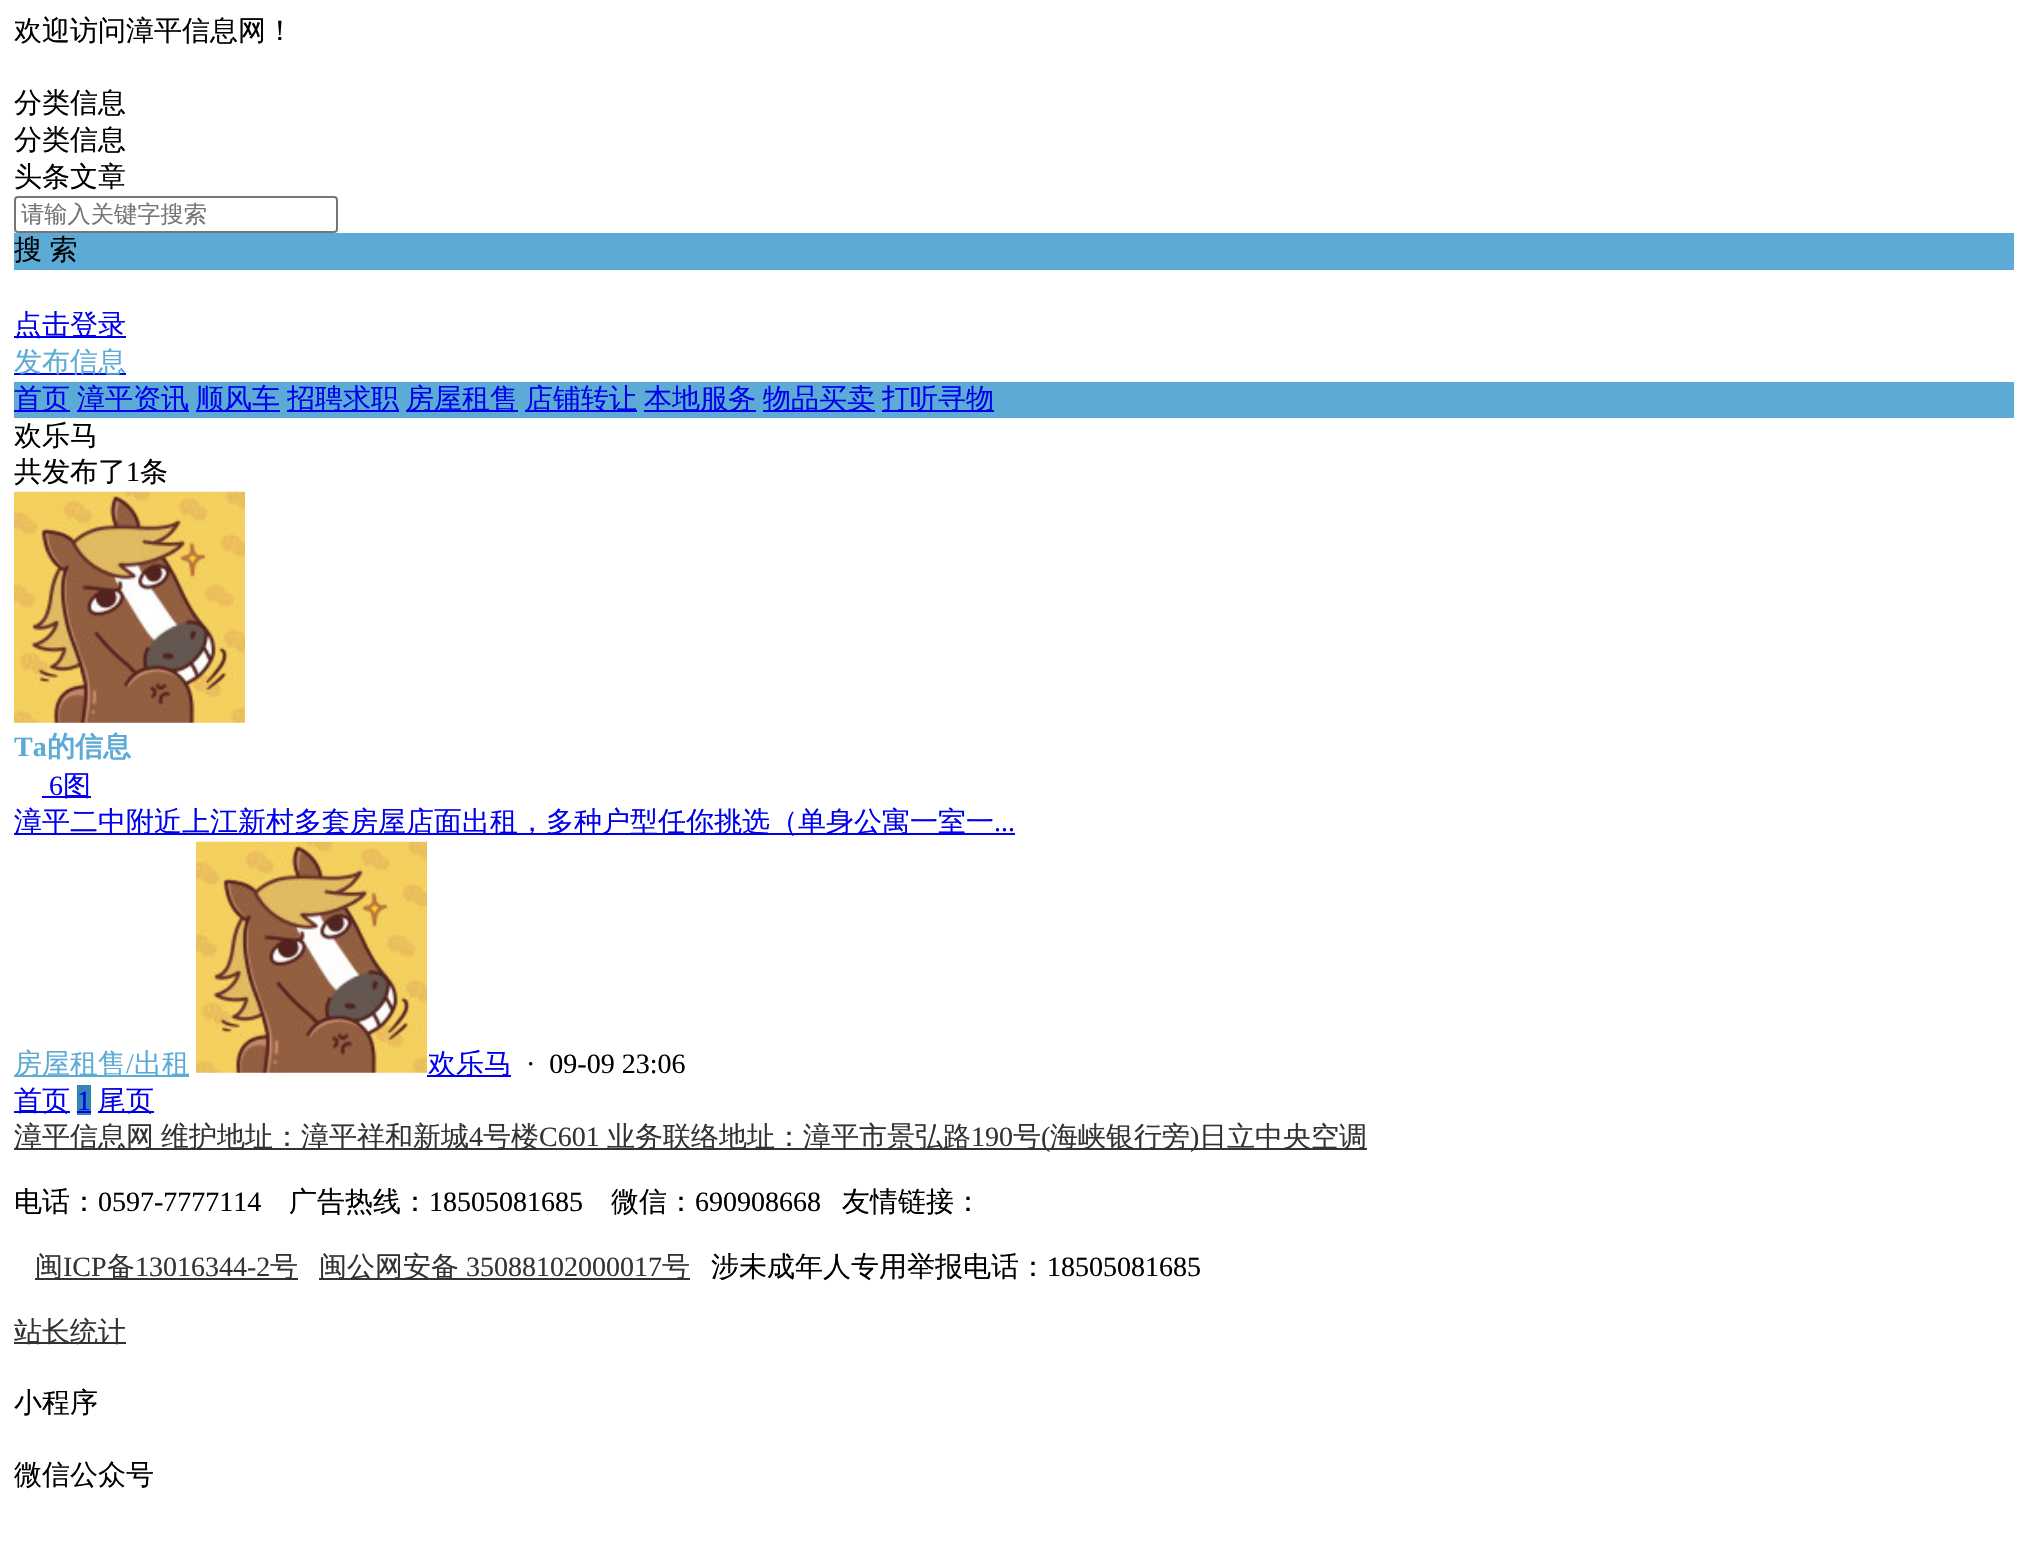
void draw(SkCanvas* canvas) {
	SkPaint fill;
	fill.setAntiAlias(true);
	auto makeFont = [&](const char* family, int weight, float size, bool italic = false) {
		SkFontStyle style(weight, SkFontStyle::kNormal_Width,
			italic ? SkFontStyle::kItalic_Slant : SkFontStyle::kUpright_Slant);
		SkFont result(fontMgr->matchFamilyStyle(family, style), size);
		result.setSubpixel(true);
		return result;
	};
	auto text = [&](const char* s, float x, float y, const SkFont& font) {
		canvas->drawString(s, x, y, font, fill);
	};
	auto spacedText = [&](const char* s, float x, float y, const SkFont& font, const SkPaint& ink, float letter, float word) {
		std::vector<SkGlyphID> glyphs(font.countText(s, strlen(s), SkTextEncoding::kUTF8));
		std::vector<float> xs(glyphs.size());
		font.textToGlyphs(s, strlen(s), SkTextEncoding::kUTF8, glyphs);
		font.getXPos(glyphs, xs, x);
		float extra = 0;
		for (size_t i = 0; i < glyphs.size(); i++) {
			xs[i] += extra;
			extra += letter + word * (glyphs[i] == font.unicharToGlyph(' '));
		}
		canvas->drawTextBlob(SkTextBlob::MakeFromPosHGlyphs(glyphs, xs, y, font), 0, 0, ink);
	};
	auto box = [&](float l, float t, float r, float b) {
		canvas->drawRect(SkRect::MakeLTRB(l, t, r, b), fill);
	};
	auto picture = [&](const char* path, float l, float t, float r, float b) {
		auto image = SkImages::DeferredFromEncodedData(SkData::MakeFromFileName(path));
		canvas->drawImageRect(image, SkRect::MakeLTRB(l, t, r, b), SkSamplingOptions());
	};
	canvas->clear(0xFFFFFFFF);
	fill.setStyle(SkPaint::kStroke_Style);
	fill.setStrokeWidth(2);
	fill.setColor(0xFF767676);
	canvas->drawRoundRect(SkRect::MakeLTRB(15, 197, 337, 232), 3, 3, fill);
	fill.setStyle(SkPaint::kFill_Style);
	fill.setColor(0xFF5CABD7);
	box(14, 233, 2014, 270);
	fill.setColor(0xFF0000EE);
	box(14, 336, 126, 338);
	box(14, 373, 126, 375);
	fill.setColor(0xFF5CABD7);
	box(14, 382, 2014, 418);
	fill.setColor(0xFF0000EE);
	box(14, 410, 70, 412);
	box(77, 410, 189, 412);
	box(196, 410, 280, 412);
	box(287, 410, 399, 412);
	box(406, 410, 518, 412);
	box(525, 410, 637, 412);
	box(644, 410, 756, 412);
	box(763, 410, 875, 412);
	box(882, 410, 994, 412);
	picture("image0.png", 14, 491, 245, 723);
	box(42, 796, 91, 798);
	box(14, 833, 1015, 835);
	fill.setColor(0xFF5CABD7);
	box(14, 1075, 189, 1077);
	picture("image1.png", 196, 841, 427, 1073);
	fill.setColor(0xFF0000EE);
	box(427, 1075, 511, 1077);
	box(14, 1111, 70, 1113);
	fill.setColor(0xFF3387B5);
	box(77, 1085, 91, 1115);
	fill.setColor(0xFF0000EE);
	box(77, 1111, 91, 1113);
	box(98, 1111, 154, 1113);
	fill.setColor(0xFF333333);
	box(14, 1148, 1367, 1150);
	box(35, 1278, 298, 1280);
	box(319, 1278, 690, 1280);
	box(14, 1342, 126, 1344);
	auto font1 = makeFont("WenQuanYi Zen Hei", 500, 28);
	fill.setColor(0xFF000000);
	text("欢迎访问漳平信息网！", 14, 40, font1);
	text("分类信息", 14, 112, font1);
	text("分类信息", 14, 149, font1);
	text("头条文章", 14, 186, font1);
	auto font2 = makeFont("WenQuanYi Zen Hei", 500, 23.25f);
	fill.setColor(0xFF757575);
	text("请输入关键字搜索", 21, 222, font2);
	fill.setColor(0xFF000000);
	spacedText("搜 索", 14, 259, font1, fill, 0, -1);
	fill.setColor(0xFF0000EE);
	text("点击登录", 14, 334, font1);
	fill.setColor(0xFF5CABD7);
	text("发布信息", 14, 371, font1);
	fill.setColor(0xFF0000EE);
	text("首页", 14, 408, font1);
	text("漳平资讯", 77, 408, font1);
	text("顺风车", 196, 408, font1);
	text("招聘求职", 287, 408, font1);
	text("房屋租售", 406, 408, font1);
	text("店铺转让", 525, 408, font1);
	text("本地服务", 644, 408, font1);
	text("物品买卖", 763, 408, font1);
	text("打听寻物", 882, 408, font1);
	fill.setColor(0xFF000000);
	text("欢乐马", 14, 445, font1);
	text("共发布了", 14, 481, font1);
	auto font3 = makeFont("Liberation Serif", 400, 28);
	text("1", 126, 481, font3);
	text("条", 140, 481, font1);
	auto font4 = makeFont("Liberation Serif", 700, 28);
	fill.setColor(0xFF5CABD7);
	text("Ta", 14, 756, font4);
	auto font5 = makeFont("WenQuanYi Zen Hei", 700, 28);
	text("的信息", 47, 756, font5);
	fill.setColor(0xFF0000EE);
	text("6", 49, 795, font3);
	text("图", 63, 795, font1);
	text("漳平二中附近上江新村多套房屋店面出租，多种户型任你挑选（单身公寓一室一", 14, 831, font1);
	text("...", 994, 831, font3);
	fill.setColor(0xFF5CABD7);
	text("房屋租售", 14, 1073, font1);
	text("/", 126, 1073, font3);
	text("出租", 134, 1073, font1);
	fill.setColor(0xFF0000EE);
	text("欢乐马", 428, 1073, font1);
	fill.setColor(0xFF000000);
	text("·  09-09 23:06", 526, 1073, font3);
	fill.setColor(0xFF0000EE);
	text("首页", 14, 1110, font1);
	text("1", 77, 1110, font3);
	text("尾页", 98, 1110, font1);
	fill.setColor(0xFF333333);
	text("漳平信息网", 14, 1146, font1);
	text("维护地址：漳平祥和新城", 161, 1146, font1);
	text("4", 469, 1146, font3);
	text("号楼", 483, 1146, font1);
	text("C601", 539, 1146, font3);
	text("业务联络地址：漳平市景弘路", 607, 1146, font1);
	text("190", 971, 1146, font3);
	text("号", 1013, 1146, font1);
	text("(", 1041, 1146, font3);
	text("海峡银行旁", 1050, 1146, font1);
	text(")", 1190, 1146, font3);
	text("日立中央空调", 1199, 1146, font1);
	fill.setColor(0xFF000000);
	text("电话：", 14, 1211, font1);
	text("0597-7777114", 98, 1211, font3);
	text("广告热线：", 289, 1211, font1);
	text("18505081685", 429, 1211, font3);
	text("微信：", 611, 1211, font1);
	text("690908668", 695, 1211, font3);
	text("友情链接：", 842, 1211, font1);
	fill.setColor(0xFF333333);
	text("闽", 35, 1276, font1);
	text("ICP", 63, 1276, font3);
	text("备", 107, 1276, font1);
	text("13016344-2", 135, 1276, font3);
	text("号", 270, 1276, font1);
	text("闽公网安备", 319, 1276, font1);
	text("35088102000017", 466, 1276, font3);
	text("号", 662, 1276, font1);
	fill.setColor(0xFF000000);
	text("涉未成年人专用举报电话：", 711, 1276, font1);
	text("18505081685", 1047, 1276, font3);
	fill.setColor(0xFF333333);
	text("站长统计", 14, 1341, font1);
	fill.setColor(0xFF000000);
	text("小程序", 14, 1412, font1);
	text("微信公众号", 14, 1484, font1);
}
